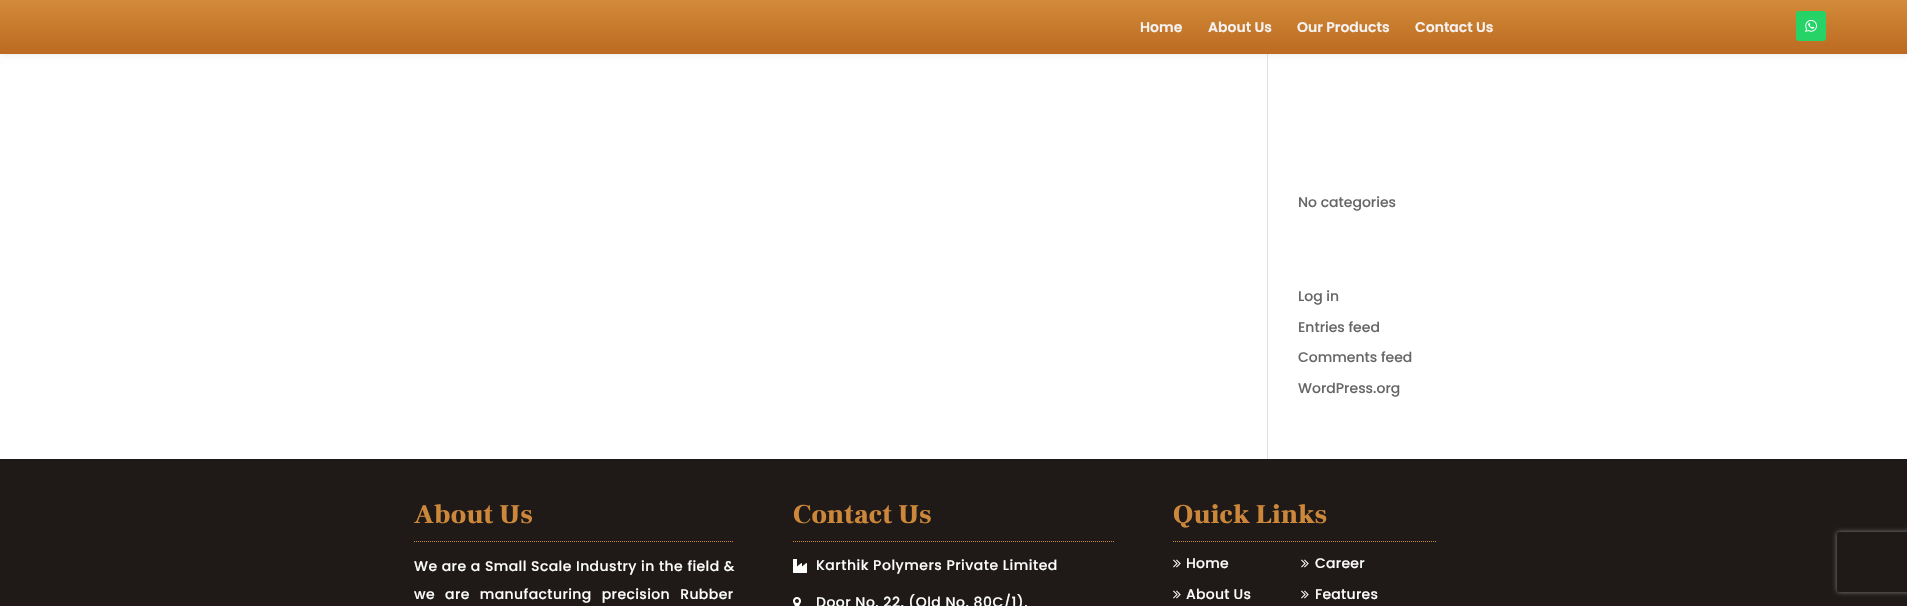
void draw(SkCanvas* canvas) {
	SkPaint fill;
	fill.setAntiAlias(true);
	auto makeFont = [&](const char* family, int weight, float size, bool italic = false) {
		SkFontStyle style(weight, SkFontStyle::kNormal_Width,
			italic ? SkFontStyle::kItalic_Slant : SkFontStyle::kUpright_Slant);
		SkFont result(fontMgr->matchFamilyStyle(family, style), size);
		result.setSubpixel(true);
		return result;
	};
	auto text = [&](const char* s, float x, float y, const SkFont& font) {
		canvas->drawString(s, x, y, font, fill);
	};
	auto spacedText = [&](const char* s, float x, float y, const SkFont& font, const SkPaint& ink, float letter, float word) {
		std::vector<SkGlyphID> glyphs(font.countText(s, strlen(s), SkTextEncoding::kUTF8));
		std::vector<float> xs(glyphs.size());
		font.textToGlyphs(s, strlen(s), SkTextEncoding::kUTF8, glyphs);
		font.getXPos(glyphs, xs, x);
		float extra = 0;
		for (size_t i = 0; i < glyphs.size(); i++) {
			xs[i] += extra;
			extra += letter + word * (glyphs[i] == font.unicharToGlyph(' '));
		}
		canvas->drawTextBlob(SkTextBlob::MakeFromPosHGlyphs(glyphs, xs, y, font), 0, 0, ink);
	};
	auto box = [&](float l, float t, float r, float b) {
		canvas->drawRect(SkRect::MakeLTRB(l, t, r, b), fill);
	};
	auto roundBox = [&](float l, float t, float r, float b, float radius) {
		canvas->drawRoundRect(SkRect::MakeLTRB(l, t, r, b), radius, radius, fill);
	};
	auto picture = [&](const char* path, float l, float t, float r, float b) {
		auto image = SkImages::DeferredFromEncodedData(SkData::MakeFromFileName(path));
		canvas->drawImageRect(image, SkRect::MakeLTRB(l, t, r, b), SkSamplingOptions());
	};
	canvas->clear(0xFFFFFFFF);
	fill.setColor(0xFFE2E2E2);
	box(1267, 54, 1268, 459);
	fill.setColor(0x1A000000);
	fill.setMaskFilter(SkMaskFilter::MakeBlur(kNormal_SkBlurStyle, 3.5f));
	canvas->drawRect(SkRect::MakeLTRB(0, 0, 1907, 54), fill);
	fill.setMaskFilter(nullptr);
	{
		const SkColor colors[] = {0xFFBC6A21, 0xFFD28B39};
		const float stops[] = {0, 1};
		const SkPoint ends[] = {{954, 54}, {954, 0}};
		fill.setShader(SkGradientShader::MakeLinear(ends, colors, stops, 2, SkTileMode::kClamp));
		fill.setAlpha(255);
	}
	box(0, 0, 1907, 54);
	fill.setShader(nullptr);
	fill.setColor(0xFF25D366);
	roundBox(1796, 11, 1826, 41, 3);
	picture("image0.png", 1805, 20, 1817, 32);
	fill.setColor(0xFF1F1A17);
	box(0, 459, 1907, 606);
	fill.setStyle(SkPaint::kStroke_Style);
	fill.setStrokeWidth(1);
	fill.setColor(0xFFCC873A);
	fill.setPathEffect(SkDashPathEffect::Make({{1, 1}}, 0));
	canvas->drawPath(SkPathBuilder().moveTo(414, 541.5f).lineTo(734, 541.5f).detach(), fill);
	fill.setPathEffect(nullptr);
	fill.setPathEffect(SkDashPathEffect::Make({{1, 1}}, 0));
	canvas->drawPath(SkPathBuilder().moveTo(793, 541.5f).lineTo(1114, 541.5f).detach(), fill);
	fill.setPathEffect(nullptr);
	picture("image1.png", 793, 559, 807, 573);
	picture("image2.png", 793, 597, 801, 606);
	fill.setPathEffect(SkDashPathEffect::Make({{1, 1}}, 0));
	canvas->drawPath(SkPathBuilder().moveTo(1173, 541.5f).lineTo(1437, 541.5f).detach(), fill);
	fill.setPathEffect(nullptr);
	picture("image3.png", 1173, 559, 1181, 568);
	picture("image3.png", 1173, 590, 1181, 599);
	picture("image3.png", 1301, 559, 1309, 568);
	picture("image3.png", 1301, 590, 1309, 599);
	canvas->save();
	canvas->clipPath(SkPathBuilder(SkPathFillType::kEvenOdd).moveTo(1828, 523).lineTo(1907, 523).lineTo(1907, 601).lineTo(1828, 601).close().moveTo(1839, 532).lineTo(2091, 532).cubicTo(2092, 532, 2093, 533, 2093, 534).lineTo(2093, 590).cubicTo(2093, 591, 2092, 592, 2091, 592).lineTo(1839, 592).cubicTo(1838, 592, 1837, 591, 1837, 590).lineTo(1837, 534).cubicTo(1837, 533, 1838, 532, 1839, 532).close().detach(), true);
	fill.setStyle(SkPaint::kFill_Style);
	fill.setColor(0xFF808080);
	fill.setMaskFilter(SkMaskFilter::MakeBlur(kNormal_SkBlurStyle, 2.5f));
	canvas->drawRoundRect(SkRect::MakeLTRB(1837, 532, 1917, 592), 2, 2, fill);
	fill.setMaskFilter(nullptr);
	canvas->restore();
	auto font1 = makeFont("Poppins", 600, 14);
	fill.setColor(0xFFF5F2F2);
	text("Home", 1140, 32, font1);
	text("About Us", 1208, 32, font1);
	text("Our Products", 1297, 32, font1);
	text("Contact Us", 1415, 32, font1);
	auto font2 = makeFont("Poppins", 500, 14);
	fill.setColor(0xFF666666);
	text("No categories", 1298, 207, font2);
	text("Log in", 1298, 301, font2);
	text("Entries feed", 1298, 332, font2);
	text("Comments feed", 1298, 362, font2);
	text("WordPress.org", 1298, 393, font2);
	auto font3 = makeFont("Frank Ruhl Libre", 900, 27);
	fill.setColor(0xFFCC873A);
	spacedText("About Us", 414, 523, font3, fill, 0.25f, 0);
	fill.setColor(0xFFFFFFFF);
	spacedText("We are a Small Scale Industry in the field &", 414, 571, font2, fill, 0.4f, 0.25f);
	spacedText("we are manufacturing precision Rubber", 414, 599, font2, fill, 0.4f, 6);
	fill.setColor(0xFFCC873A);
	spacedText("Contact Us", 793, 523, font3, fill, 0.25f, 0);
	fill.setColor(0xFFFFFFFF);
	spacedText("Karthik Polymers Private Limited", 816, 570, font2, fill, 0.5f, 0);
	spacedText("Door No. 22, (Old No. 80C/1),", 816, 607, font2, fill, 0.5f, 0);
	fill.setColor(0xFFCC873A);
	spacedText("Quick Links", 1173, 523, font3, fill, 0.25f, 0);
	fill.setColor(0xFFFFFFFF);
	spacedText("Home", 1186, 568, font2, fill, 0.25f, 0);
	spacedText("About Us", 1186, 599, font2, fill, 0.25f, 0);
	spacedText("Career", 1315, 568, font2, fill, 0.25f, 0);
	spacedText("Features", 1315, 599, font2, fill, 0.25f, 0);
}
